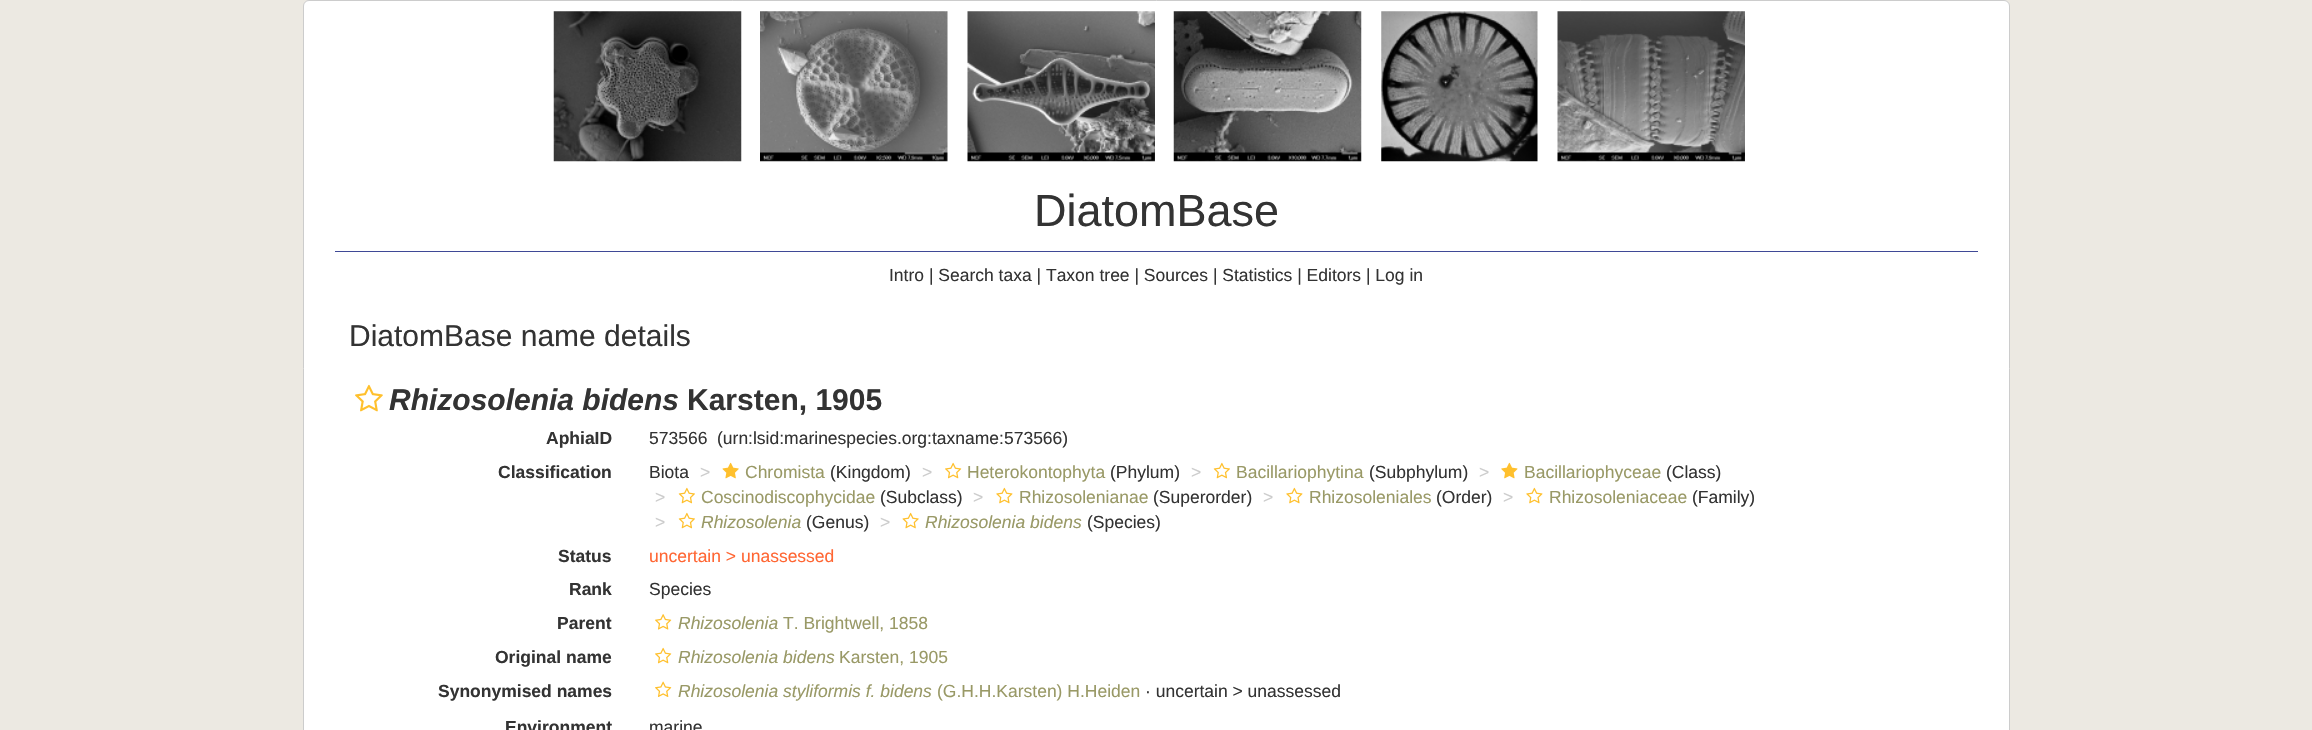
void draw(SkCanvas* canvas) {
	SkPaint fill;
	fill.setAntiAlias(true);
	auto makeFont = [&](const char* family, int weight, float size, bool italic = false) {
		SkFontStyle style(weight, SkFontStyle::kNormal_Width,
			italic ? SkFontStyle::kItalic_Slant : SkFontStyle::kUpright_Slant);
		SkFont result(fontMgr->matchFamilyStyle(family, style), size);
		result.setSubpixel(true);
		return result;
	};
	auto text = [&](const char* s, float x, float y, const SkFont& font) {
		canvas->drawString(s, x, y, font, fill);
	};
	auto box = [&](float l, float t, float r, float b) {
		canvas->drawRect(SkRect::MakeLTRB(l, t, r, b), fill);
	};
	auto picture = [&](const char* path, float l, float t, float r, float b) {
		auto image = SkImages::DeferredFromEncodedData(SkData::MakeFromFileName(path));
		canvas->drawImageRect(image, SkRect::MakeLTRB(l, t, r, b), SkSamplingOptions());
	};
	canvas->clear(0xFFECE9E2);
	fill.setColor(0xFFFFFFFF);
	canvas->drawRoundRect(SkRect::MakeLTRB(303.5f, 0.5f, 2009.5f, 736.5f), 5.5f, 5.5f, fill);
	fill.setStyle(SkPaint::kStroke_Style);
	fill.setStrokeWidth(1);
	fill.setColor(0xFFCCCCCC);
	canvas->drawRoundRect(SkRect::MakeLTRB(303.5f, 0.5f, 2009.5f, 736.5f), 5.5f, 5.5f, fill);
	picture("image0.png", 553, 11, 742, 162);
	picture("image1.png", 760, 11, 948, 162);
	picture("image2.png", 967, 11, 1155, 162);
	picture("image3.png", 1173, 11, 1362, 162);
	picture("image4.png", 1381, 11, 1538, 162);
	picture("image5.png", 1557, 11, 1745, 162);
	fill.setStyle(SkPaint::kFill_Style);
	fill.setColor(0xFF3F4996);
	box(335, 251, 1978, 252);
	picture("image6.png", 355, 384, 383, 412);
	picture("image7.png", 722, 462, 739, 479);
	picture("image8.png", 945, 462, 962, 479);
	picture("image9.png", 1213, 462, 1230, 479);
	picture("image10.png", 1501, 462, 1518, 479);
	picture("image9.png", 678, 487, 695, 504);
	picture("image11.png", 996, 487, 1013, 504);
	picture("image11.png", 1286, 487, 1303, 504);
	picture("image11.png", 1526, 487, 1543, 504);
	picture("image9.png", 678, 512, 695, 529);
	picture("image12.png", 902, 512, 919, 529);
	picture("image13.png", 655, 614, 672, 630);
	picture("image8.png", 655, 647, 672, 664);
	picture("image14.png", 655, 681, 672, 697);
	auto font1 = makeFont("Liberation Sans", 400, 45);
	fill.setColor(0xFF333333);
	text("DiatomBase", 1034, 226, font1);
	auto font2 = makeFont("Liberation Sans", 400, 17.5f);
	text("Intro | Search taxa | Taxon tree | Sources | Statistics | Editors | Log in", 889, 281, font2);
	auto font3 = makeFont("Liberation Sans", 400, 30);
	text("DiatomBase name details", 349, 346, font3);
	auto font4 = makeFont("Liberation Sans", 700, 30, true);
	text("Rhizosolenia bidens", 389, 410, font4);
	auto font5 = makeFont("Liberation Sans", 700, 30);
	text("Karsten, 1905", 687, 410, font5);
	auto font6 = makeFont("Liberation Sans", 700, 17.5f);
	text("AphiaID", 546, 444, font6);
	text("573566", 649, 444, font2);
	text("(urn:lsid:marinespecies.org:taxname:573566)", 717, 444, font2);
	text("Classification", 498, 478, font6);
	text("Biota", 649, 478, font2);
	fill.setColor(0xFFCCCCCC);
	text(">", 700, 478, font2);
	fill.setColor(0xFF999966);
	text("Chromista", 745, 478, font2);
	fill.setColor(0xFF333333);
	text("(Kingdom)", 830, 478, font2);
	fill.setColor(0xFFCCCCCC);
	text(">", 922, 478, font2);
	fill.setColor(0xFF999966);
	text("Heterokontophyta", 967, 478, font2);
	fill.setColor(0xFF333333);
	text("(Phylum)", 1110, 478, font2);
	fill.setColor(0xFFCCCCCC);
	text(">", 1191, 478, font2);
	fill.setColor(0xFF999966);
	text("Bacillariophytina", 1236, 478, font2);
	fill.setColor(0xFF333333);
	text("(Subphylum)", 1369, 478, font2);
	fill.setColor(0xFFCCCCCC);
	text(">", 1479, 478, font2);
	fill.setColor(0xFF999966);
	text("Bacillariophyceae", 1524, 478, font2);
	fill.setColor(0xFF333333);
	text("(Class)", 1666, 478, font2);
	fill.setColor(0xFFCCCCCC);
	text(">", 655, 503, font2);
	fill.setColor(0xFF999966);
	text("Coscinodiscophycidae", 701, 503, font2);
	fill.setColor(0xFF333333);
	text("(Subclass)", 880, 503, font2);
	fill.setColor(0xFFCCCCCC);
	text(">", 973, 503, font2);
	fill.setColor(0xFF999966);
	text("Rhizosolenianae", 1019, 503, font2);
	fill.setColor(0xFF333333);
	text("(Superorder)", 1153, 503, font2);
	fill.setColor(0xFFCCCCCC);
	text(">", 1263, 503, font2);
	fill.setColor(0xFF999966);
	text("Rhizosoleniales", 1309, 503, font2);
	fill.setColor(0xFF333333);
	text("(Order)", 1436, 503, font2);
	fill.setColor(0xFFCCCCCC);
	text(">", 1503, 503, font2);
	fill.setColor(0xFF999966);
	text("Rhizosoleniaceae", 1549, 503, font2);
	fill.setColor(0xFF333333);
	text("(Family)", 1692, 503, font2);
	fill.setColor(0xFFCCCCCC);
	text(">", 655, 528, font2);
	auto font7 = makeFont("Liberation Sans", 400, 17.5f, true);
	fill.setColor(0xFF999966);
	text("Rhizosolenia", 701, 528, font7);
	fill.setColor(0xFF333333);
	text("(Genus)", 806, 528, font2);
	fill.setColor(0xFFCCCCCC);
	text(">", 880, 528, font2);
	fill.setColor(0xFF999966);
	text("Rhizosolenia bidens", 925, 528, font7);
	fill.setColor(0xFF333333);
	text("(Species)", 1087, 528, font2);
	text("Status", 558, 562, font6);
	fill.setColor(0xFFFF6633);
	text("uncertain > unassessed", 649, 562, font2);
	fill.setColor(0xFF333333);
	text("Rank", 569, 595, font6);
	text("Species", 649, 595, font2);
	text("Parent", 557, 629, font6);
	fill.setColor(0xFF999966);
	text("Rhizosolenia", 678, 629, font7);
	text("T. Brightwell, 1858", 783, 629, font2);
	fill.setColor(0xFF333333);
	text("Original name", 495, 663, font6);
	fill.setColor(0xFF999966);
	text("Rhizosolenia bidens", 678, 663, font7);
	text("Karsten, 1905", 839, 663, font2);
	fill.setColor(0xFF333333);
	text("Synonymised names", 438, 697, font6);
	fill.setColor(0xFF999966);
	text("Rhizosolenia styliformis f. bidens", 678, 697, font7);
	text("(G.H.H.Karsten) H.Heiden", 937, 697, font2);
	fill.setColor(0xFF333333);
	text("· uncertain > unassessed", 1145, 697, font2);
	text("Environment", 505, 733, font6);
	text("marine", 649, 733, font2);
}
